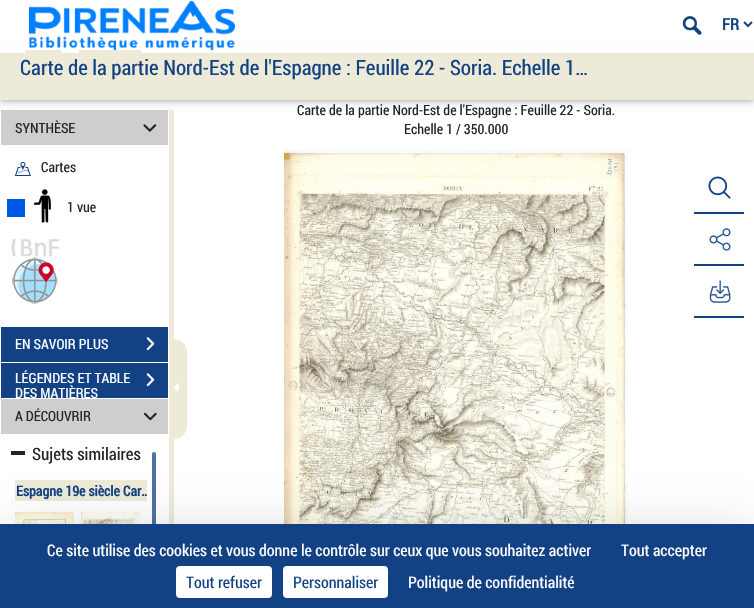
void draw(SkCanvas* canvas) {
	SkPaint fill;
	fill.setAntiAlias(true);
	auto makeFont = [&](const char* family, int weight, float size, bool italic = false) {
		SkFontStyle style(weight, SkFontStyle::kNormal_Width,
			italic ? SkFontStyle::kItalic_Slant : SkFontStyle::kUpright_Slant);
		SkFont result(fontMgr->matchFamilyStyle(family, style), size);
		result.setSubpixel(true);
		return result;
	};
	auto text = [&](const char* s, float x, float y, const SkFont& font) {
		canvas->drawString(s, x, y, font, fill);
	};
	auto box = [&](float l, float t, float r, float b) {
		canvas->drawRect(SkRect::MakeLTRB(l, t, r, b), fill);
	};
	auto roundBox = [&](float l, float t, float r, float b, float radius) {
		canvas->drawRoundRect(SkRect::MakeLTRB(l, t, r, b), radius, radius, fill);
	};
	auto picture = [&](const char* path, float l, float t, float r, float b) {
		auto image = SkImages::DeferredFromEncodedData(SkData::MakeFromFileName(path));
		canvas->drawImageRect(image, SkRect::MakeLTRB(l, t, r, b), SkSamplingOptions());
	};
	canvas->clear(0xFFFFFFFF);
	fill.setColor(0x1F000000);
	fill.setMaskFilter(SkMaskFilter::MakeBlur(kNormal_SkBlurStyle, 5));
	canvas->drawRect(SkRect::MakeLTRB(0, 52, 754, 102), fill);
	fill.setMaskFilter(nullptr);
	fill.setColor(0x29000000);
	fill.setMaskFilter(SkMaskFilter::MakeBlur(kNormal_SkBlurStyle, 2));
	canvas->drawRect(SkRect::MakeLTRB(0, 52, 754, 102), fill);
	fill.setMaskFilter(nullptr);
	fill.setColor(0xFFFFFFFF);
	box(0, 45, 754, 53);
	picture("image0.png", 29, 1, 235, 50);
	picture("image1.png", 682, 16, 702, 35);
	fill.setStyle(SkPaint::kStroke_Style);
	fill.setStrokeWidth(2);
	fill.setColor(0xFF134284);
	canvas->drawPath(SkPathBuilder().moveTo(744, 22).lineTo(748, 26).lineTo(752, 22).detach(), fill);
	fill.setStyle(SkPaint::kFill_Style);
	fill.setColor(0xFFEDEAD8);
	box(0, 53, 754, 100);
	box(25, 50, 61, 53);
	box(79, 50, 141, 53);
	box(169, 110, 174, 524);
	fill.setColor(0xFFCECECE);
	box(1, 110, 168, 145);
	picture("image2.png", 143, 124, 157, 132);
	picture("image3.png", 14, 161, 31, 176);
	fill.setColor(0xFF0057E2);
	box(7, 199, 25, 217);
	picture("image4.png", 34, 189, 51, 223);
	picture("image5.png", 11, 238, 60, 257);
	picture("image6.png", 12, 257, 58, 304);
	fill.setColor(0xFF134284);
	box(1, 327, 168, 362);
	picture("image7.png", 146, 337, 155, 351);
	box(1, 363, 168, 398);
	picture("image7.png", 146, 373, 155, 387);
	fill.setColor(0xFFCECECE);
	box(1, 399, 168, 434);
	picture("image8.png", 143, 412, 157, 421);
	fill.setColor(0xFF212529);
	box(11, 451, 25, 455);
	fill.setColor(0xFFEDEAD8);
	box(15, 480, 147, 501);
	picture("image9.png", 15, 512, 74, 524);
	picture("image10.png", 81, 512, 140, 524);
	fill.setColor(0xFF4E71A3);
	roundBox(152, 452, 156, 580, 2);
	fill.setColor(0xFFEDEAD8);
	canvas->drawPath(SkPathBuilder().moveTo(174.5f, 339.5f).lineTo(174, 339.5f).cubicTo(181, 339.5f, 186.5f, 345, 186.5f, 352).lineTo(186.5f, 426).cubicTo(186.5f, 433, 181, 438.5f, 174, 438.5f).lineTo(174.5f, 438.5f).close().detach(), fill);
	fill.setStyle(SkPaint::kStroke_Style);
	fill.setStrokeWidth(1);
	canvas->drawPath(SkPathBuilder().moveTo(174.5f, 339.5f).lineTo(174, 339.5f).cubicTo(181, 339.5f, 186.5f, 345, 186.5f, 352).lineTo(186.5f, 426).cubicTo(186.5f, 433, 181, 438.5f, 174, 438.5f).lineTo(174.5f, 438.5f).close().detach(), fill);
	picture("image11.png", 173, 383, 179, 392);
	picture("image12.png", 284, 149, 628, 524);
	picture("image13.png", 708, 176, 731, 199);
	fill.setStyle(SkPaint::kFill_Style);
	fill.setColor(0xFF134284);
	box(694, 212, 744, 214);
	picture("image14.png", 709, 228, 731, 251);
	box(694, 264, 744, 266);
	picture("image15.png", 709, 280, 731, 303);
	box(694, 316, 744, 318);
	fill.setColor(0x40000000);
	fill.setMaskFilter(SkMaskFilter::MakeBlur(kNormal_SkBlurStyle, 30));
	canvas->drawRect(SkRect::MakeLTRB(0, 544, 754, 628), fill);
	fill.setMaskFilter(nullptr);
	fill.setColor(0xFF134284);
	box(0, 524, 754, 608);
	fill.setColor(0xFFFFFFFF);
	roundBox(176, 566, 272, 598, 4);
	roundBox(283, 566, 388, 598, 4);
	auto font1 = makeFont("Roboto Condensed", 700, 16);
	fill.setColor(0xFF134284);
	text("FR", 722, 30, font1);
	auto font2 = makeFont("Roboto Condensed", 400, 21);
	text("Carte de la partie Nord-Est de l'Espagne : Feuille 22 - Soria. Echelle 1…", 20, 75, font2);
	auto font3 = makeFont("Roboto Condensed", 400, 14);
	fill.setColor(0xFF212529);
	text("SYNTHÈSE", 15, 133, font3);
	text("Cartes", 41, 172, font3);
	text("1 vue", 67, 212, font3);
	fill.setColor(0xFFFFFFFF);
	text("EN SAVOIR PLUS", 15, 349, font3);
	text("LÉGENDES ET TABLE", 15, 383, font3);
	text("DES MATIÈRES", 15, 398, font3);
	fill.setColor(0xFF212529);
	text("A DÉCOUVRIR", 15, 421, font3);
	auto font4 = makeFont("Roboto Condensed", 400, 17);
	text("Sujets similaires", 32, 460, font4);
	auto font5 = makeFont("Roboto Condensed", 700, 14);
	fill.setColor(0xFF134284);
	text("Espagne 19e siècle", 16, 496, font5);
	canvas->save();
	canvas->clipRect(SkRect::MakeLTRB(15, 480, 147, 501));
	text("Car…", 123, 496, font5);
	canvas->restore();
	fill.setColor(0xFF212529);
	text("Carte de la partie Nord-Est de l'Espagne : Feuille 22 - Soria.", 297, 115, font3);
	text("Echelle 1 / 350.000", 404, 134, font3);
	auto font6 = makeFont("Roboto Condensed", 400, 16);
	fill.setColor(0xFFFFFFFF);
	text("Ce site utilise des cookies et vous donne le contrôle sur ceux que vous souhaitez activer", 47, 556, font6);
	text("Tout accepter", 621, 556, font6);
	fill.setColor(0xFF134284);
	text("Tout refuser", 186, 588, font6);
	text("Personnaliser", 293, 588, font6);
	fill.setColor(0xFFFFFFFF);
	text("Politique de confidentialité", 408, 588, font6);
}
